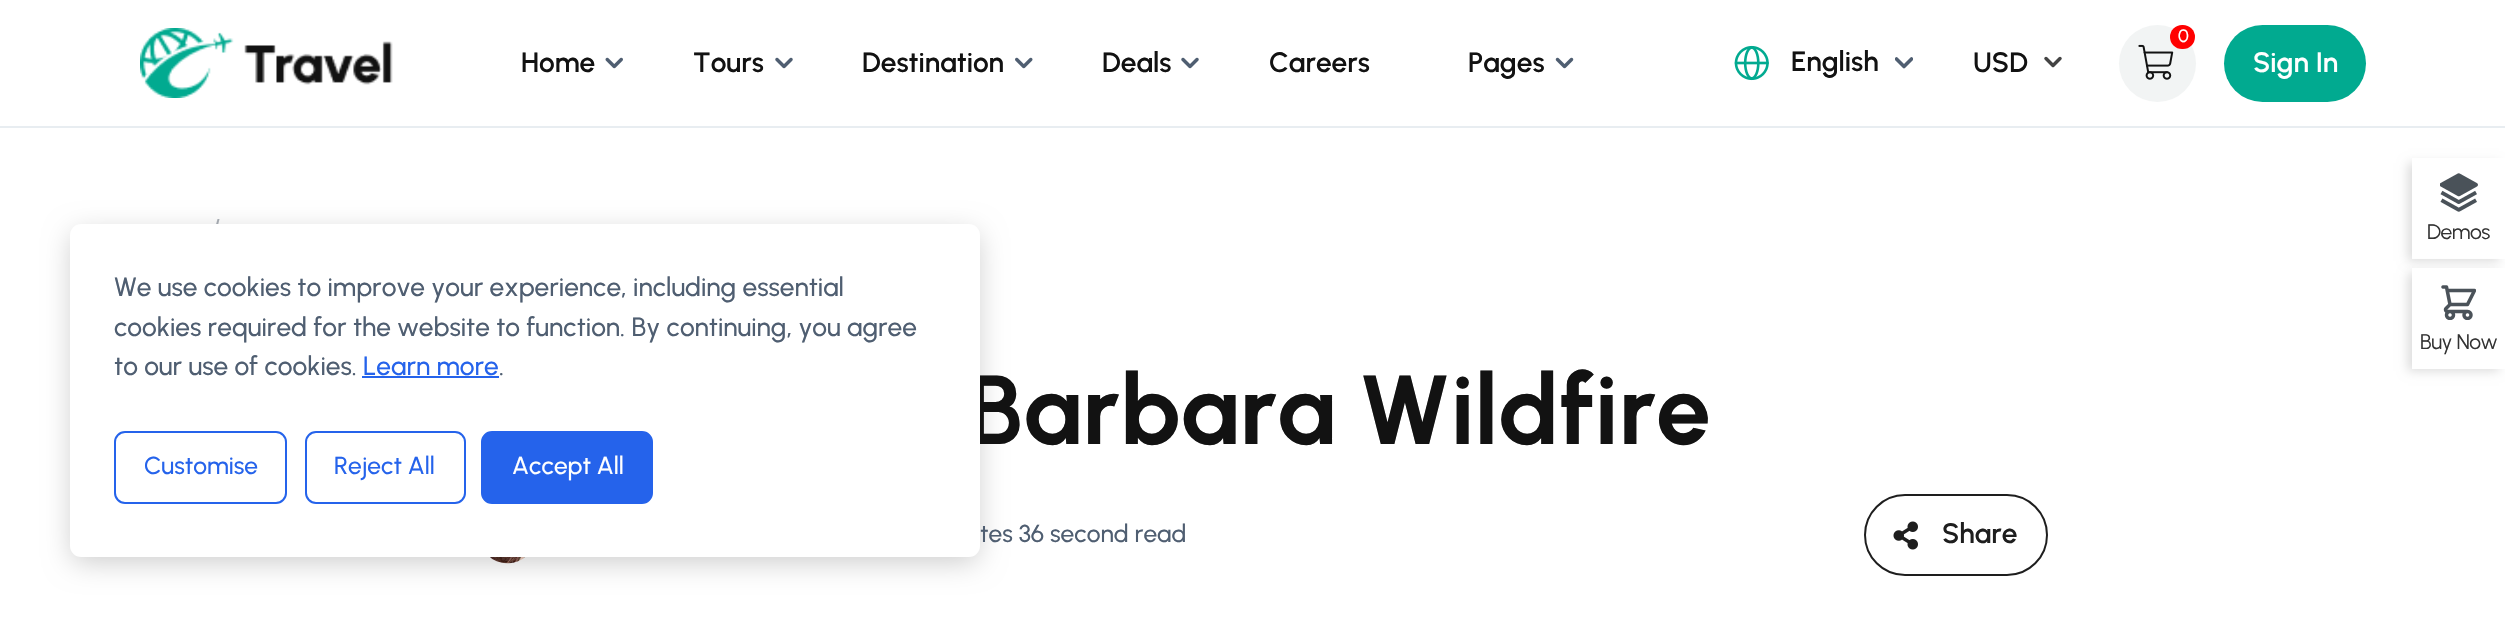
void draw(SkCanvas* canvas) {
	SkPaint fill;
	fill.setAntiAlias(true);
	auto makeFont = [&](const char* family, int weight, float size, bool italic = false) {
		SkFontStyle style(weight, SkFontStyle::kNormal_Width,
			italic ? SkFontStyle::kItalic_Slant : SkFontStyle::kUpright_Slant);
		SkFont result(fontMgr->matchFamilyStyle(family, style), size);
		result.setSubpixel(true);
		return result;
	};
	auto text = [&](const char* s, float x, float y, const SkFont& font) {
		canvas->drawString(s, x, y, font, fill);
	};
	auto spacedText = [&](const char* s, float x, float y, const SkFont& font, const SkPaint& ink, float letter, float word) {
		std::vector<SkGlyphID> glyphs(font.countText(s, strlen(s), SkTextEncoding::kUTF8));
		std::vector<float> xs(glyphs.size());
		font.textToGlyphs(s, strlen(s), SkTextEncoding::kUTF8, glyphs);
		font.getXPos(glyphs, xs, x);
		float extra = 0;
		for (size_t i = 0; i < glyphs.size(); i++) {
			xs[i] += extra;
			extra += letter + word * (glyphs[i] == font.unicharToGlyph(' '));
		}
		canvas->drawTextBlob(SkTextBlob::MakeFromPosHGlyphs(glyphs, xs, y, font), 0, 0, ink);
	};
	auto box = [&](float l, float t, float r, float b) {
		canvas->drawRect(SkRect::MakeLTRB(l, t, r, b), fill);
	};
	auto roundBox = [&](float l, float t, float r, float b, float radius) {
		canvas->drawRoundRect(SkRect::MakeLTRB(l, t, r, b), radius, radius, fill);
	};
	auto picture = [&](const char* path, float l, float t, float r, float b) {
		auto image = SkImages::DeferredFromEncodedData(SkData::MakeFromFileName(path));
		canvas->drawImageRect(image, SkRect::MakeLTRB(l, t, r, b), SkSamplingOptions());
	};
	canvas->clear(0xFFFFFFFF);
	fill.setColor(0xFFE8EDF1);
	box(0, 126, 2505, 128);
	picture("image0.png", 140, 28, 393, 98);
	picture("image1.png", 605, 57, 623, 69);
	picture("image2.png", 775, 57, 793, 69);
	picture("image3.png", 1015, 57, 1033, 69);
	picture("image2.png", 1181, 57, 1199, 69);
	picture("image4.png", 1555, 57, 1574, 69);
	fill.setColor(0xFFF2F4F4);
	canvas->drawCircle(2157.5f, 63.5f, 38.5f, fill);
	picture("image5.png", 2138, 44, 2174, 80);
	fill.setColor(0xFFFF0000);
	roundBox(2170, 25, 2195, 49, 12);
	picture("image6.png", 1734, 45, 1769, 81);
	canvas->save();
	canvas->clipRect(SkRect::MakeLTRB(1895, 56, 1913, 77));
	fill.setStyle(SkPaint::kStroke_Style);
	fill.setStrokeWidth(3.6f);
	fill.setStrokeCap(SkPaint::kRound_Cap);
	fill.setStrokeJoin(SkPaint::kRound_Join);
	fill.setColor(0xFF4F5E71);
	canvas->drawPath(SkPathBuilder().moveTo(1911.5f, 59).lineTo(1904, 66.5f).lineTo(1896.5f, 59).detach(), fill);
	canvas->restore();
	fill.setStrokeWidth(3.5f);
	fill.setColor(0xFF444444);
	canvas->drawPath(SkPathBuilder().moveTo(2046, 58.5f).lineTo(2053, 65.5f).lineTo(2060, 58.5f).detach(), fill);
	fill.setStyle(SkPaint::kFill_Style);
	fill.setColor(0xFF01AA90);
	roundBox(2224, 25, 2366, 102, 38.5f);
	fill.setColor(0xFFAAAFB6);
	canvas->drawPath(SkPathBuilder().moveTo(219.5f, 219).lineTo(215, 237.5f).lineTo(212.5f, 237.5f).lineTo(217.5f, 219).close().detach(), fill);
	picture("image7.png", 490, 557, 525, 564);
	fill.setColor(0x33000000);
	fill.setMaskFilter(SkMaskFilter::MakeBlur(kNormal_SkBlurStyle, 14));
	canvas->drawRoundRect(SkRect::MakeLTRB(72, 233, 978, 562), 9, 9, fill);
	fill.setMaskFilter(nullptr);
	fill.setStyle(SkPaint::kStroke_Style);
	fill.setStrokeWidth(2);
	fill.setStrokeCap(SkPaint::kButt_Cap);
	fill.setStrokeJoin(SkPaint::kMiter_Join);
	fill.setColor(0xFF1E1E1E);
	canvas->drawRoundRect(SkRect::MakeLTRB(1865, 495, 2047, 575), 40, 40, fill);
	picture("image8.png", 1893, 521, 1918, 550);
	canvas->save();
	canvas->clipPath(SkPathBuilder(SkPathFillType::kEvenOdd).moveTo(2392, 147).lineTo(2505, 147).lineTo(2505, 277).lineTo(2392, 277).close().moveTo(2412, 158).lineTo(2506, 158).lineTo(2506, 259).lineTo(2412, 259).close().detach(), true);
	fill.setStyle(SkPaint::kFill_Style);
	fill.setColor(0x24000000);
	fill.setMaskFilter(SkMaskFilter::MakeBlur(kNormal_SkBlurStyle, 5));
	canvas->drawRect(SkRect::MakeLTRB(2408, 163, 2499, 261), fill);
	fill.setMaskFilter(nullptr);
	canvas->restore();
	picture("image9.png", 2440, 173, 2478, 212);
	fill.setMaskFilter(SkMaskFilter::MakeBlur(kNormal_SkBlurStyle, 5));
	canvas->drawRect(SkRect::MakeLTRB(2408, 273, 2499, 371), fill);
	fill.setMaskFilter(nullptr);
	fill.setColor(0xFFFFFFFF);
	box(2412, 268, 2505, 369);
	picture("image10.png", 2441, 285, 2476, 320);
	auto font1 = makeFont("Urbanist", 600, 28);
	fill.setColor(0xFF121212);
	text("Home", 521, 72, font1);
	text("Tours", 693, 72, font1);
	text("Destination", 862, 72, font1);
	text("Deals", 1102, 72, font1);
	text("Careers", 1269, 72, font1);
	text("Pages", 1468, 72, font1);
	auto font2 = makeFont("Urbanist", 500, 18);
	fill.setColor(0xFFFFFFFF);
	text("0", 2178, 42, font2);
	fill.setColor(0xFF121212);
	text("English", 1791, 71, font1);
	text("USD", 1973, 72, font1);
	fill.setColor(0xFFFFFFFF);
	text("Sign In", 2253, 72, font1);
	auto font3 = makeFont("Urbanist", 700, 98);
	fill.setColor(0xFF121212);
	text("Barbara Wildfire", 966, 444, font3);
	fill.setColor(0xFFFFFFFF);
	roundBox(70, 224, 980, 557, 11);
	fill.setColor(0xFF2563EB);
	canvas->drawRoundRect(SkRect::MakeLTRB(482, 432, 652, 503), 10, 10, fill);
	fill.setStyle(SkPaint::kStroke_Style);
	canvas->drawRoundRect(SkRect::MakeLTRB(482, 432, 652, 503), 10, 10, fill);
	auto font4 = makeFont("Urbanist", 500, 24.5f);
	fill.setStyle(SkPaint::kFill_Style);
	fill.setColor(0xFFFFFFFF);
	text("Accept All", 512, 474, font4);
	fill.setStyle(SkPaint::kStroke_Style);
	fill.setColor(0xFF2563EB);
	canvas->drawRoundRect(SkRect::MakeLTRB(306, 432, 465, 503), 10, 10, fill);
	fill.setStyle(SkPaint::kFill_Style);
	text("Reject All", 334, 474, font4);
	fill.setStyle(SkPaint::kStroke_Style);
	canvas->drawRoundRect(SkRect::MakeLTRB(115, 432, 286, 503), 10, 10, fill);
	fill.setStyle(SkPaint::kFill_Style);
	text("Customise", 144, 474, font4);
	auto font5 = makeFont("Urbanist", 500, 26.25f);
	fill.setColor(0xFF4F5E71);
	text(".", 499, 375, font5);
	fill.setColor(0xFF2563EB);
	text("Learn more", 363, 375, font5);
	box(362, 376, 499, 378);
	fill.setColor(0xFF4F5E71);
	text("to our use of cookies.", 114, 375, font5);
	text("cookies required for the website to function. By continuing, you agree", 114, 336, font5);
	text("We use cookies to improve your experience, including essential", 114, 296, font5);
	text("tes 36 second read", 980, 542, font4);
	fill.setColor(0xFF1E1E1E);
	text("Share", 1942, 543, font1);
	auto font6 = makeFont("Urbanist", 400, 21);
	fill.setColor(0xFF333333);
	spacedText("Demos", 2427, 239, font6, fill, -0.5f, 0);
	spacedText("Buy Now", 2420, 349, font6, fill, -0.5f, 0);
}
